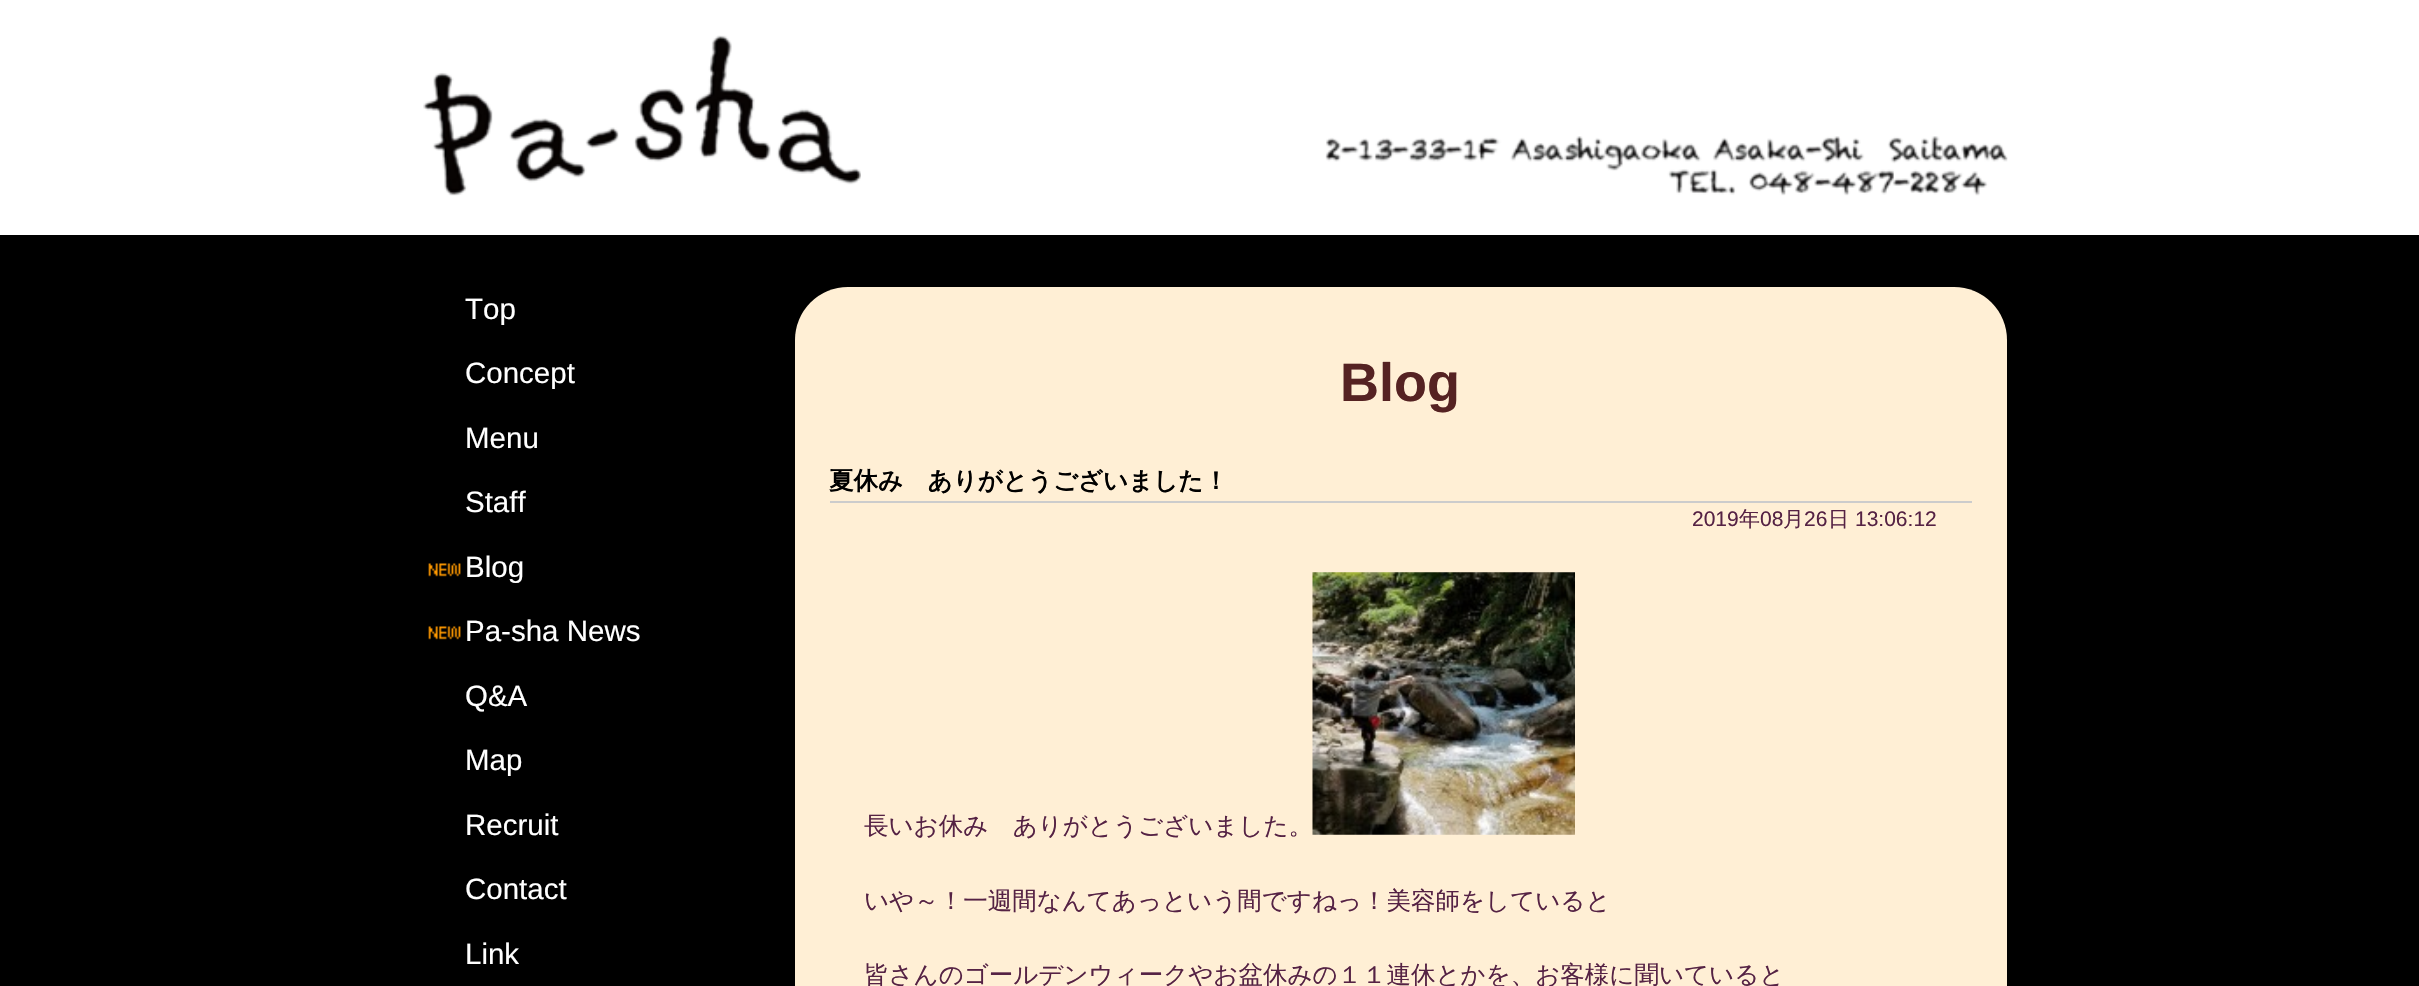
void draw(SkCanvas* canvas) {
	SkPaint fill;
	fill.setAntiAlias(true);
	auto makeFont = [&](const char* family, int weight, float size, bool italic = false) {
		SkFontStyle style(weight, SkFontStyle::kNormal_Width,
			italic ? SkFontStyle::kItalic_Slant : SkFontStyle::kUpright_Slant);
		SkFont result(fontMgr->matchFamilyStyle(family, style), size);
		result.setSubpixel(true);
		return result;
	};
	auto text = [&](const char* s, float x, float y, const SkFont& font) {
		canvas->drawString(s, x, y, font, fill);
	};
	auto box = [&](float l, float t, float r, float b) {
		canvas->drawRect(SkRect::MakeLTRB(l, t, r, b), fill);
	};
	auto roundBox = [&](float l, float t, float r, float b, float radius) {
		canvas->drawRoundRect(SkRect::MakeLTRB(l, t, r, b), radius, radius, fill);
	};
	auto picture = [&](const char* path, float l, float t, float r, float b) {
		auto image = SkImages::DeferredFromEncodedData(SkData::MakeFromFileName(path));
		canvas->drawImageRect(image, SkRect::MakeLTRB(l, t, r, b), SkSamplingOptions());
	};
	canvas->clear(0xFF000000);
	fill.setColor(0xFFFFFFFF);
	box(0, 0, 2419, 235);
	picture("image0.png", 423, 35, 861, 196);
	picture("image1.png", 1325, 136, 2008, 196);
	picture("image2.png", 428, 563, 461, 577);
	picture("image2.png", 428, 626, 461, 640);
	fill.setColor(0xFFFFEFD5);
	roundBox(795, 287, 2007, 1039, 53);
	fill.setColor(0xFFCCCCCC);
	box(830, 501, 1972, 503);
	picture("image3.png", 1312, 572, 1575, 835);
	auto font1 = makeFont("Liberation Sans", 400, 29.5f);
	fill.setColor(0xFFFFFFFF);
	text("Top", 465, 319, font1);
	text("Concept", 465, 383, font1);
	text("Menu", 465, 448, font1);
	text("Staff", 465, 512, font1);
	text("Blog", 465, 577, font1);
	text("Pa-sha News", 465, 641, font1);
	text("Q&A", 465, 706, font1);
	text("Map", 465, 770, font1);
	text("Recruit", 465, 835, font1);
	text("Contact", 465, 899, font1);
	text("Link", 465, 964, font1);
	auto font2 = makeFont("Liberation Sans", 700, 54);
	fill.setColor(0xFF552222);
	text("Blog", 1340, 401, font2);
	auto font3 = makeFont("WenQuanYi Zen Hei", 700, 24.5f);
	fill.setColor(0xFF000000);
	text("夏休み　ありがとうございました！", 829, 489, font3);
	auto font4 = makeFont("Liberation Sans", 400, 21);
	fill.setColor(0xFF552244);
	text("2019", 1692, 526, font4);
	auto font5 = makeFont("WenQuanYi Zen Hei", 500, 21);
	text("年", 1739, 526, font5);
	text("08", 1760, 526, font4);
	text("月", 1783, 526, font5);
	text("26", 1804, 526, font4);
	text("日", 1828, 526, font5);
	text("13:06:12", 1855, 526, font4);
	auto font6 = makeFont("WenQuanYi Zen Hei", 500, 24.5f);
	text("長いお休み　ありがとうございました。", 864, 834, font6);
	text("いや～！一週間なんてあっという間ですねっ！美容師をしていると", 864, 909, font6);
	text("皆さんのゴールデンウィークやお盆休みの１１連休とかを、お客様に聞いていると", 864, 983, font6);
}
